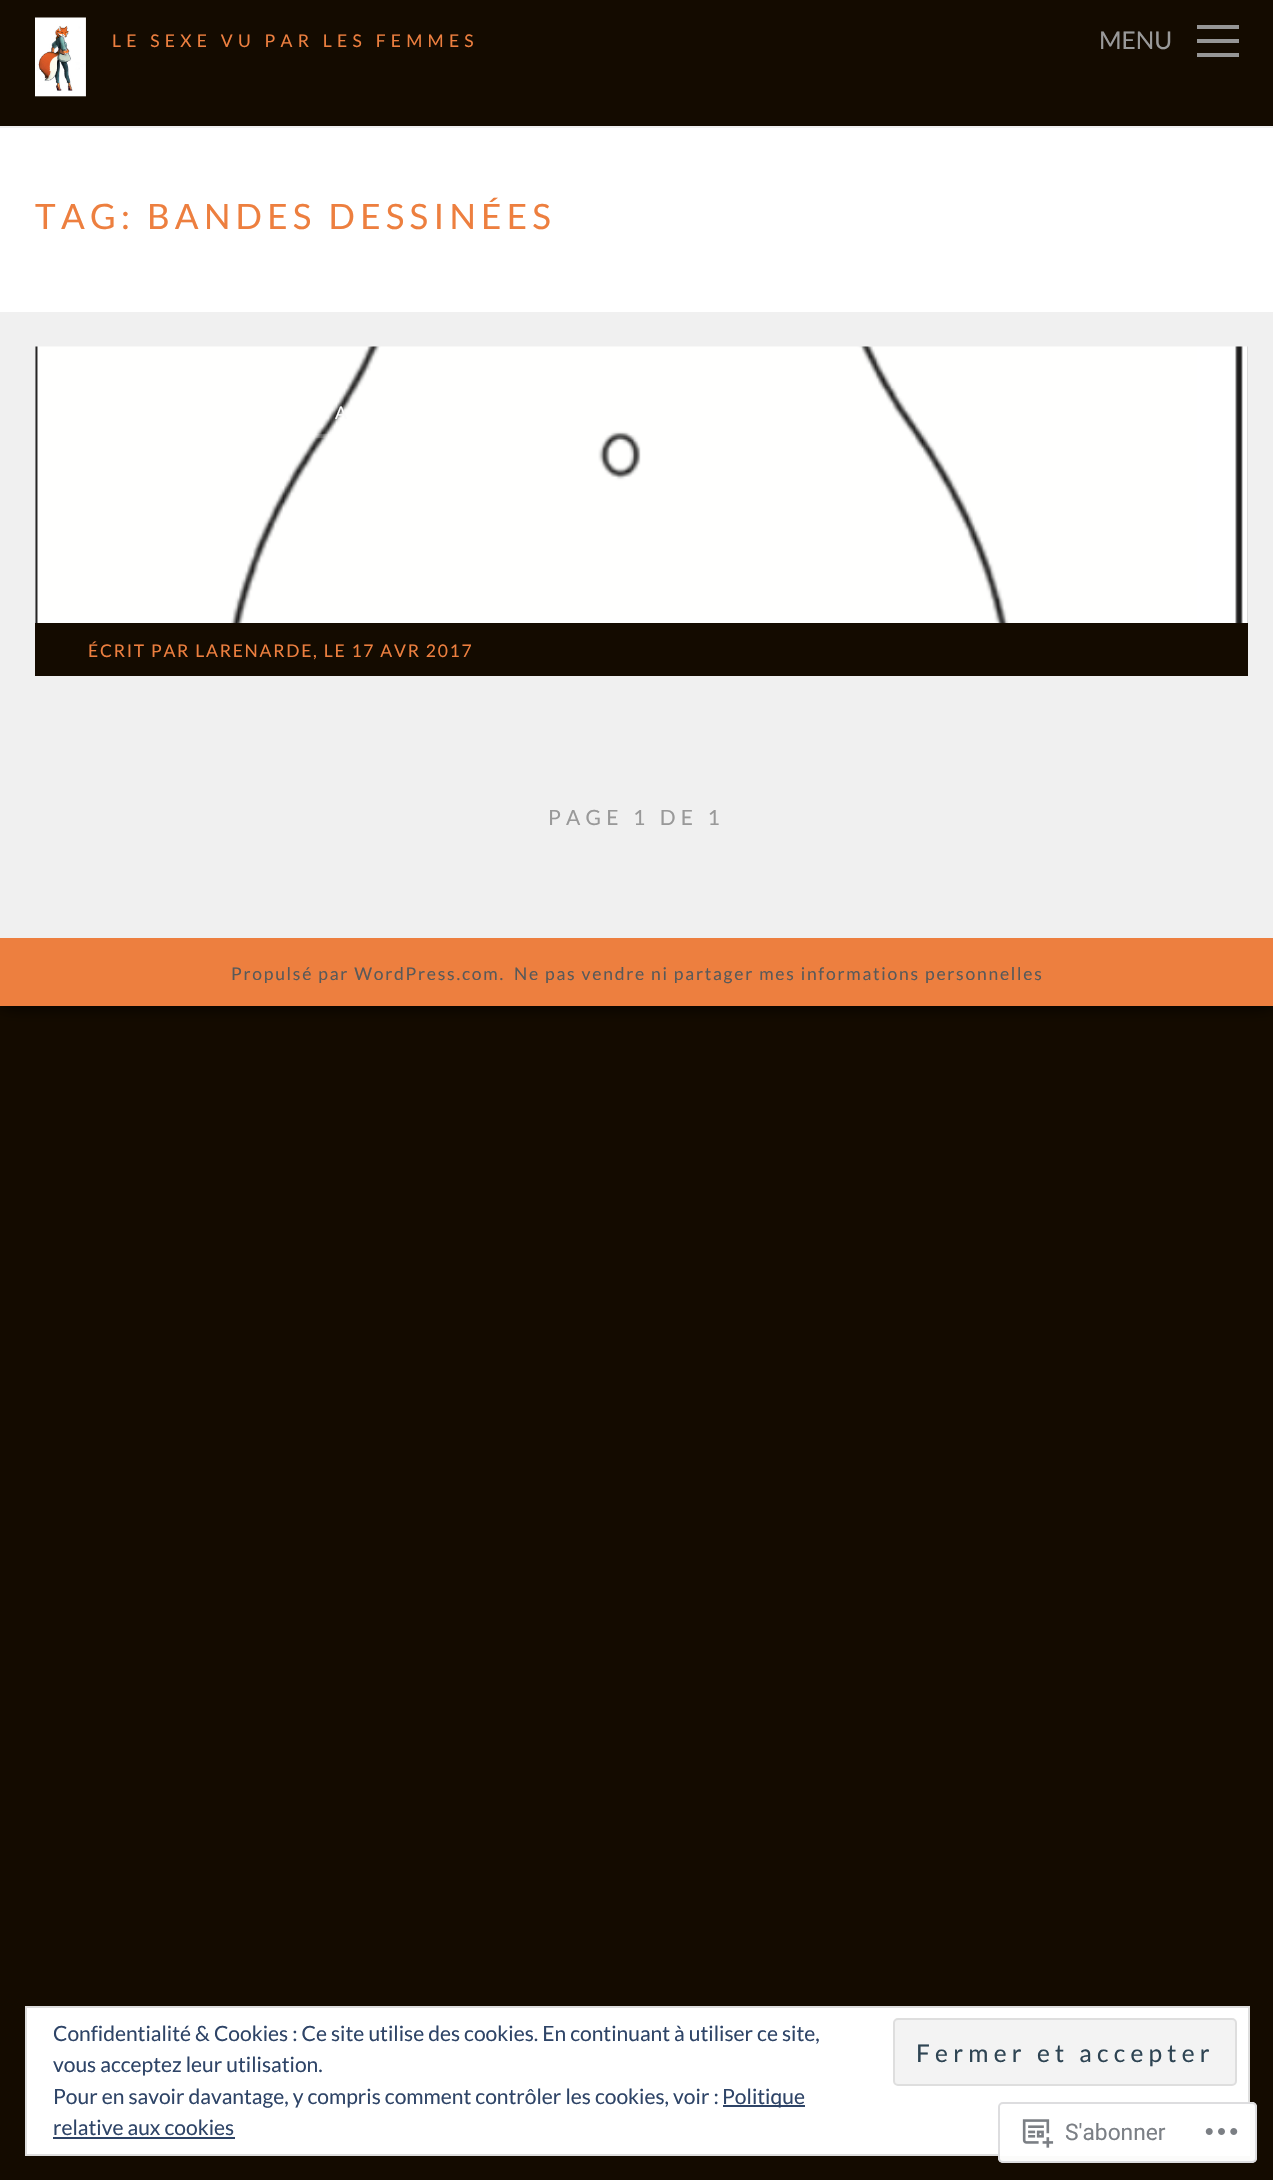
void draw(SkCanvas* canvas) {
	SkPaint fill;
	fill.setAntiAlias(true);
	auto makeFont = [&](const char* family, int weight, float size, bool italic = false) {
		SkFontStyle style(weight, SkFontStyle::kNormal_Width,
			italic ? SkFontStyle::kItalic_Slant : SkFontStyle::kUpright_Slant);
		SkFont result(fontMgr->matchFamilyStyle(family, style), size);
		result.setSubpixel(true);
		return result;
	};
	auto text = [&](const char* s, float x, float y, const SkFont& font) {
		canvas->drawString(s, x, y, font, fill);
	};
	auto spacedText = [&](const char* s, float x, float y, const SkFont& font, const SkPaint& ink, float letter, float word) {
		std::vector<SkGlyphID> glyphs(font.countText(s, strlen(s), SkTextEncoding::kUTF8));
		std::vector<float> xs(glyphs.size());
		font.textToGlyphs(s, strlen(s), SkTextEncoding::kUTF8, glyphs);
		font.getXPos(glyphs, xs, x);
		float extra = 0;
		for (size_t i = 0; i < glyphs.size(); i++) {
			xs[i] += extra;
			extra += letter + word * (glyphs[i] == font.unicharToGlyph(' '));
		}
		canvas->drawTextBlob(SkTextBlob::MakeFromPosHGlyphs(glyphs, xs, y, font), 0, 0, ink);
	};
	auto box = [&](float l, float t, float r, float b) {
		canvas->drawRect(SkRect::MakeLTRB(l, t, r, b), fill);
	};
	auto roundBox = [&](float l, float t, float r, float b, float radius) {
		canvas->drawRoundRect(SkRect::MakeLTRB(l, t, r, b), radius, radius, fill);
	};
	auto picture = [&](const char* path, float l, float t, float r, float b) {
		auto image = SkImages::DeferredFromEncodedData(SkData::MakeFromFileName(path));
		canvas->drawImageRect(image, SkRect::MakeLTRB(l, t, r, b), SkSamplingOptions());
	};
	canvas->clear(0xFF140B00);
	fill.setColor(0xFF000000);
	fill.setMaskFilter(SkMaskFilter::MakeBlur(kNormal_SkBlurStyle, 9));
	canvas->drawRect(SkRect::MakeLTRB(0, 0, 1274, 1006), fill);
	fill.setMaskFilter(nullptr);
	fill.setColor(0xFF140B00);
	box(0, 0, 1273, 126);
	picture("image0.png", 35, 17, 86, 97);
	fill.setColor(0xFF969696);
	box(1197, 25, 1239, 29);
	box(1197, 39, 1239, 43);
	box(1197, 53, 1239, 57);
	fill.setColor(0xFFF0F0F0);
	box(0, 126, 1273, 938);
	fill.setColor(0xFFFFFFFF);
	box(0, 128, 1273, 312);
	picture("image1.png", 35, 346, 1248, 623);
	fill.setColor(0x33FFFFFF);
	box(314, 434, 328, 438);
	fill.setColor(0xFF140B00);
	box(35, 623, 1248, 676);
	fill.setColor(0xFFED7F3F);
	box(0, 938, 1273, 1006);
	fill.setColor(0xFFFFFFFF);
	canvas->drawRect(SkRect::MakeLTRB(26, 2007, 1249, 2155), fill);
	fill.setStyle(SkPaint::kStroke_Style);
	fill.setStrokeWidth(2);
	fill.setColor(0xFFDEDEDE);
	canvas->drawRect(SkRect::MakeLTRB(26, 2007, 1249, 2155), fill);
	fill.setStyle(SkPaint::kFill_Style);
	fill.setColor(0xFFF3F3F3);
	canvas->drawRoundRect(SkRect::MakeLTRB(894, 2019, 1236, 2085), 4, 4, fill);
	fill.setStyle(SkPaint::kStroke_Style);
	fill.setColor(0xFFDEDEDE);
	canvas->drawRoundRect(SkRect::MakeLTRB(894, 2019, 1236, 2085), 4, 4, fill);
	fill.setStyle(SkPaint::kFill_Style);
	fill.setColor(0xFF2E4467);
	box(723, 2105, 805, 2107);
	box(53, 2137, 235, 2139);
	fill.setColor(0xFAFFFFFF);
	roundBox(998, 2102, 1257, 2163, 5);
	fill.setStyle(SkPaint::kStroke_Style);
	fill.setColor(0xFADCDCDE);
	canvas->drawRoundRect(SkRect::MakeLTRB(999, 2103, 1256, 2162), 4, 4, fill);
	picture("image2.png", 1022, 2119, 1054, 2148);
	picture("image3.png", 1205, 2128, 1238, 2135);
	auto font1 = makeFont("Lato", 400, 17.5f);
	fill.setStyle(SkPaint::kFill_Style);
	fill.setColor(0xFFED7F3F);
	spacedText("LE SEXE VU PAR LES FEMMES", 112, 47, font1, fill, 5.25f, 0);
	auto font2 = makeFont("Lato", 400, 24.5f);
	fill.setColor(0xFF999999);
	text("MENU", 1099, 49, font2);
	auto font3 = makeFont("Lato", 400, 35);
	fill.setColor(0xFFED7F3F);
	spacedText("TAG: BANDES DESSINÉES", 35, 229, font3, fill, 5.25f, 0);
	fill.setColor(0xFFFCFCFC);
	spacedText("A", 335, 419, font1, fill, 5.25f, 0);
	fill.setColor(0xFFED7F3F);
	spacedText("ÉCRIT PAR LARENARDE, LE 17 AVR 2017", 88, 657, font1, fill, 1.75f, 0);
	auto font4 = makeFont("Lato", 400, 21);
	fill.setColor(0xFF999999);
	spacedText("PAGE 1 DE 1", 548, 825, font4, fill, 5.25f, 0);
	fill.setColor(0xFF595959);
	spacedText("Propulsé par WordPress.com.", 231, 980, font1, fill, 1.75f, 0);
	spacedText("Ne pas vendre ni partager mes informations personnelles", 514, 980, font1, fill, 1.75f, 0);
	fill.setColor(0xFF2E4467);
	text("Confidentialité & Cookies : Ce site utilise des cookies. En continuant à utiliser ce site,", 53, 2041, font4);
	text("vous acceptez leur utilisation.", 53, 2072, font4);
	fill.setColor(0xFF2E4453);
	spacedText("Fermer et accepter", 916, 2062, font2, fill, 5.25f, 0);
	fill.setColor(0xFF2E4467);
	text("Pour en savoir davantage, y compris comment contrôler les cookies, voir :", 53, 2104, font4);
	text("Politique", 722, 2104, font4);
	text("relative aux cookies", 53, 2135, font4);
	auto font5 = makeFont("Roboto", 400, 22.75f);
	fill.setColor(0xFF7B7F85);
	text("S'abonner", 1065, 2140, font5);
}
